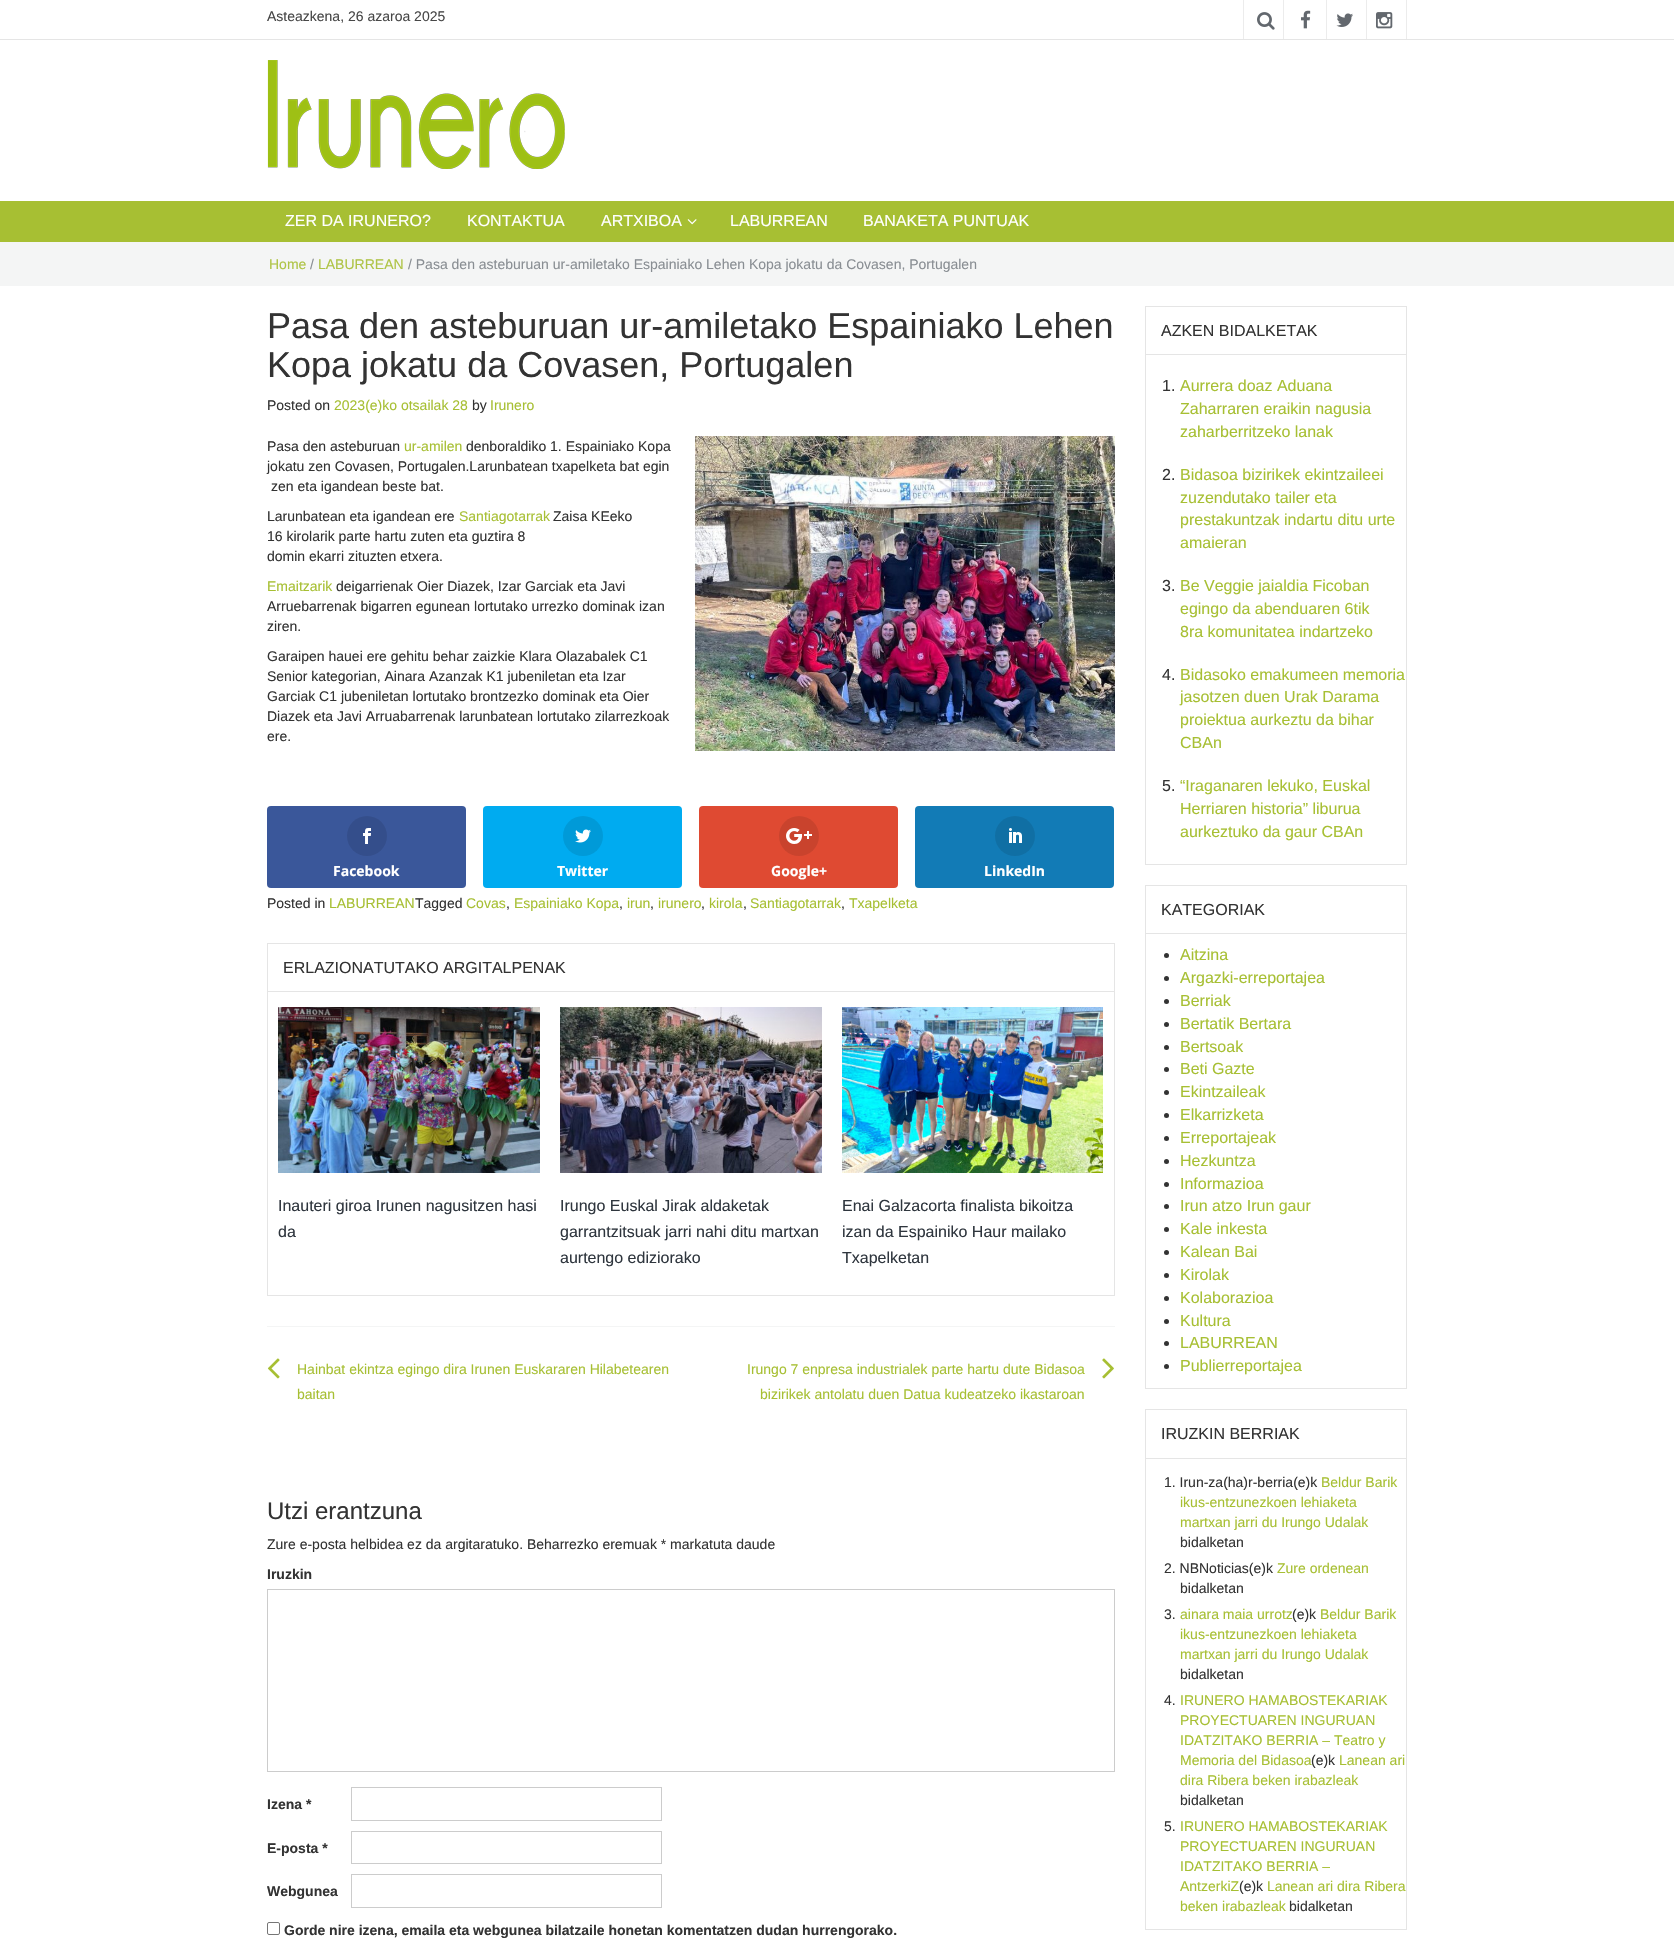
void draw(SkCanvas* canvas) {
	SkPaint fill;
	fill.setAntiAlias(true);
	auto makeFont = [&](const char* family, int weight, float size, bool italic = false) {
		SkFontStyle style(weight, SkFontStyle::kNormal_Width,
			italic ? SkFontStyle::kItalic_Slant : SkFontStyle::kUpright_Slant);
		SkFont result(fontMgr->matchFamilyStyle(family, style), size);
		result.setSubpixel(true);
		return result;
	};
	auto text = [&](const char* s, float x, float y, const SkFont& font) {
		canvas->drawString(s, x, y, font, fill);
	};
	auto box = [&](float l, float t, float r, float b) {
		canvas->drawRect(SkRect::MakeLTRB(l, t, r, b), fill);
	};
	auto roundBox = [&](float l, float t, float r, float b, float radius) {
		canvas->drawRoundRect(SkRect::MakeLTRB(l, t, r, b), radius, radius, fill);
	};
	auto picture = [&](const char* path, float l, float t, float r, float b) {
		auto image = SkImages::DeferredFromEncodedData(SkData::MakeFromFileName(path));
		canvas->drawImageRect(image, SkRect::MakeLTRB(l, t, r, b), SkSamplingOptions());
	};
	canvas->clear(0xFFFFFFFF);
	fill.setColor(0xFFE5E5E5);
	box(0, 39, 1674, 40);
	fill.setColor(0xFFECECEC);
	box(1243, 0, 1244, 39);
	picture("image0.png", 1257, 12, 1275, 30);
	box(1326, 0, 1327, 39);
	box(1283, 0, 1284, 39);
	picture("image1.png", 1301, 10, 1311, 29);
	box(1366, 0, 1367, 39);
	picture("image2.png", 1336, 13, 1353, 27);
	box(1406, 0, 1407, 39);
	picture("image3.png", 1376, 12, 1393, 29);
	picture("image4.png", 267, 60, 565, 169);
	fill.setColor(0xFFA7BF33);
	box(0, 201, 1674, 242);
	picture("image5.png", 687, 219, 697, 225);
	fill.setColor(0xFFF4F5F5);
	box(0, 242, 1674, 286);
	picture("image6.png", 695, 436, 1115, 751);
	fill.setColor(0xFF3A579A);
	roundBox(267, 806, 466, 888, 4);
	fill.setColor(0xFF344E8B);
	canvas->drawCircle(367, 836, 20, fill);
	picture("image7.png", 363, 828, 371, 844);
	fill.setColor(0xFF00ABF0);
	roundBox(483, 806, 682, 888, 4);
	fill.setColor(0xFF009AD8);
	canvas->drawCircle(583, 836, 20, fill);
	picture("image8.png", 575, 829, 591, 843);
	fill.setColor(0xFFDF4A32);
	roundBox(699, 806, 898, 888, 4);
	fill.setColor(0xFFC9432D);
	canvas->drawCircle(799, 836, 20, fill);
	picture("image9.png", 786, 828, 812, 844);
	fill.setColor(0xFF127BB6);
	roundBox(915, 806, 1114, 888, 4);
	fill.setColor(0xFF106FA4);
	canvas->drawCircle(1015, 836, 20, fill);
	picture("image10.png", 1009, 828, 1022, 843);
	fill.setStyle(SkPaint::kStroke_Style);
	fill.setStrokeWidth(1);
	fill.setColor(0xFFE5E5E5);
	canvas->drawRect(SkRect::MakeLTRB(267.5f, 943.5f, 1114.5f, 1295.5f), fill);
	fill.setStyle(SkPaint::kFill_Style);
	box(268, 991, 1114, 992);
	picture("image11.png", 278, 1007, 540, 1173);
	picture("image12.png", 560, 1007, 822, 1173);
	picture("image13.png", 842, 1007, 1103, 1173);
	fill.setColor(0xFFF4F5F5);
	box(267, 1326, 1115, 1327);
	picture("image14.png", 267, 1358, 280, 1379);
	picture("image15.png", 1102, 1358, 1114, 1379);
	fill.setStyle(SkPaint::kStroke_Style);
	fill.setColor(0xFFCCCCCC);
	canvas->drawRect(SkRect::MakeLTRB(267.5f, 1589.5f, 1114.5f, 1771.5f), fill);
	canvas->drawRect(SkRect::MakeLTRB(351.5f, 1787.5f, 661.5f, 1820.5f), fill);
	canvas->drawRect(SkRect::MakeLTRB(351.5f, 1831.5f, 661.5f, 1863.5f), fill);
	canvas->drawRect(SkRect::MakeLTRB(351.5f, 1874.5f, 661.5f, 1907.5f), fill);
	fill.setColor(0xFF767676);
	canvas->drawRoundRect(SkRect::MakeLTRB(267.5f, 1922.5f, 279.5f, 1934.5f), 1.5f, 1.5f, fill);
	fill.setColor(0xFFE5E5E5);
	canvas->drawRect(SkRect::MakeLTRB(1145.5f, 306.5f, 1406.5f, 864.5f), fill);
	fill.setStyle(SkPaint::kFill_Style);
	box(1146, 354, 1406, 355);
	fill.setStyle(SkPaint::kStroke_Style);
	canvas->drawRect(SkRect::MakeLTRB(1145.5f, 885.5f, 1406.5f, 1388.5f), fill);
	fill.setStyle(SkPaint::kFill_Style);
	box(1146, 933, 1406, 934);
	fill.setColor(0xFF333333);
	canvas->drawCircle(1166.5f, 955.5f, 2.5f, fill);
	canvas->drawCircle(1166.5f, 978.5f, 2.5f, fill);
	canvas->drawCircle(1166.5f, 1001.5f, 2.5f, fill);
	canvas->drawCircle(1166.5f, 1024.5f, 2.5f, fill);
	canvas->drawCircle(1166.5f, 1047.5f, 2.5f, fill);
	canvas->drawCircle(1166.5f, 1069.5f, 2.5f, fill);
	canvas->drawCircle(1166.5f, 1092.5f, 2.5f, fill);
	canvas->drawCircle(1166.5f, 1115.5f, 2.5f, fill);
	canvas->drawCircle(1166.5f, 1138.5f, 2.5f, fill);
	canvas->drawCircle(1166.5f, 1161.5f, 2.5f, fill);
	canvas->drawCircle(1166.5f, 1184.5f, 2.5f, fill);
	canvas->drawCircle(1166.5f, 1206.5f, 2.5f, fill);
	canvas->drawCircle(1166.5f, 1229.5f, 2.5f, fill);
	canvas->drawCircle(1166.5f, 1252.5f, 2.5f, fill);
	canvas->drawCircle(1166.5f, 1275.5f, 2.5f, fill);
	canvas->drawCircle(1166.5f, 1298.5f, 2.5f, fill);
	canvas->drawCircle(1166.5f, 1321.5f, 2.5f, fill);
	canvas->drawCircle(1166.5f, 1343.5f, 2.5f, fill);
	canvas->drawCircle(1166.5f, 1366.5f, 2.5f, fill);
	fill.setStyle(SkPaint::kStroke_Style);
	fill.setColor(0xFFE5E5E5);
	canvas->drawRect(SkRect::MakeLTRB(1145.5f, 1409.5f, 1406.5f, 1929.5f), fill);
	fill.setStyle(SkPaint::kFill_Style);
	box(1146, 1458, 1406, 1459);
	auto font1 = makeFont("Liberation Sans", 400, 14);
	fill.setColor(0xFF474747);
	text("Asteazkena, 26 azaroa 2025", 267, 21, font1);
	auto font2 = makeFont("Liberation Sans", 400, 16);
	fill.setColor(0xFFFFFFFF);
	text("ZER DA IRUNERO?", 285, 226, font2);
	text("KONTAKTUA", 467, 226, font2);
	text("ARTXIBOA", 601, 226, font2);
	text("LABURREAN", 730, 226, font2);
	text("BANAKETA PUNTUAK", 863, 226, font2);
	fill.setColor(0xFFAFC446);
	text("Home", 269, 269, font1);
	fill.setColor(0xFF898E93);
	text("/", 310, 269, font1);
	fill.setColor(0xFFAFC446);
	text("LABURREAN", 318, 269, font1);
	fill.setColor(0xFF898E93);
	text("/ Pasa den asteburuan ur-amiletako Espainiako Lehen Kopa jokatu da Covasen, Portugalen", 408, 269, font1);
	auto font3 = makeFont("Liberation Sans", 400, 36);
	fill.setColor(0xFF333333);
	text("Pasa den asteburuan ur-amiletako Espainiako Lehen", 267, 338, font3);
	text("Kopa jokatu da Covasen, Portugalen", 267, 377, font3);
	text("Posted on", 267, 410, font1);
	fill.setColor(0xFFA7BF33);
	text("2023(e)ko otsailak 28", 334, 410, font1);
	fill.setColor(0xFF333333);
	text("by", 472, 410, font1);
	fill.setColor(0xFFA7BF33);
	text("Irunero", 490, 410, font1);
	fill.setColor(0xFF333333);
	text("Pasa den asteburuan", 267, 451, font1);
	fill.setColor(0xFFA7BF33);
	text("ur-amilen", 404, 451, font1);
	fill.setColor(0xFF333333);
	text("denboraldiko 1. Espainiako Kopa", 466, 451, font1);
	text("jokatu zen Covasen, Portugalen.Larunbatean txapelketa bat egin", 267, 471, font1);
	text("zen eta igandean beste bat.", 271, 491, font1);
	text("Larunbatean eta igandean ere", 267, 521, font1);
	fill.setColor(0xFFA7BF33);
	text("Santiagotarrak", 459, 521, font1);
	fill.setColor(0xFF333333);
	text("Zaisa KEeko", 553, 521, font1);
	text("16 kirolarik parte hartu zuten eta guztira 8", 267, 541, font1);
	text("domin ekarri zituzten etxera.", 267, 561, font1);
	fill.setColor(0xFFA7BF33);
	text("Emaitzarik", 267, 591, font1);
	fill.setColor(0xFF333333);
	text("deigarrienak Oier Diazek, Izar Garciak eta Javi", 336, 591, font1);
	text("Arruebarrenak bigarren egunean lortutako urrezko dominak izan", 267, 611, font1);
	text("ziren.", 267, 631, font1);
	text("Garaipen hauei ere gehitu behar zaizkie Klara Olazabalek C1", 267, 661, font1);
	text("Senior kategorian, Ainara Azanzak K1 jubeniletan eta Izar", 267, 681, font1);
	text("Garciak C1 jubeniletan lortutako brontzezko dominak eta Oier", 267, 701, font1);
	text("Diazek eta Javi Arruabarrenak larunbatean lortutako zilarrezkoak", 267, 721, font1);
	text("ere.", 267, 741, font1);
	auto font4 = makeFont("Open Sans", 700, 14);
	fill.setColor(0xFFFFFFFF);
	text("Facebook", 333, 876, font4);
	text("Twitter", 557, 876, font4);
	text("Google+", 771, 876, font4);
	text("LinkedIn", 984, 876, font4);
	fill.setColor(0xFF333333);
	text("Posted in", 267, 908, font1);
	fill.setColor(0xFFA7BF33);
	text("LABURREAN", 329, 908, font1);
	fill.setColor(0xFF333333);
	text("Tagged", 415, 908, font1);
	fill.setColor(0xFFA7BF33);
	text("Covas", 466, 908, font1);
	fill.setColor(0xFF333333);
	text(",", 506, 908, font1);
	fill.setColor(0xFFA7BF33);
	text("Espainiako Kopa", 514, 908, font1);
	fill.setColor(0xFF333333);
	text(",", 619, 908, font1);
	fill.setColor(0xFFA7BF33);
	text("irun", 627, 908, font1);
	fill.setColor(0xFF333333);
	text(",", 650, 908, font1);
	fill.setColor(0xFFA7BF33);
	text("irunero", 658, 908, font1);
	fill.setColor(0xFF333333);
	text(",", 701, 908, font1);
	fill.setColor(0xFFA7BF33);
	text("kirola", 709, 908, font1);
	fill.setColor(0xFF333333);
	text(",", 743, 908, font1);
	fill.setColor(0xFFA7BF33);
	text("Santiagotarrak", 750, 908, font1);
	fill.setColor(0xFF333333);
	text(",", 841, 908, font1);
	fill.setColor(0xFFA7BF33);
	text("Txapelketa", 849, 908, font1);
	fill.setColor(0xFF333333);
	text("ERLAZIONATUTAKO ARGITALPENAK", 283, 973, font2);
	fill.setColor(0xFF2F363E);
	text("Inauteri giroa Irunen nagusitzen hasi", 278, 1211, font2);
	text("da", 278, 1237, font2);
	text("Irungo Euskal Jirak aldaketak", 560, 1211, font2);
	text("garrantzitsuak jarri nahi ditu martxan", 560, 1237, font2);
	text("aurtengo ediziorako", 560, 1263, font2);
	text("Enai Galzacorta finalista bikoitza", 842, 1211, font2);
	text("izan da Espainiko Haur mailako", 842, 1237, font2);
	text("Txapelketan", 842, 1263, font2);
	fill.setColor(0xFFA7BF33);
	text("Hainbat ekintza egingo dira Irunen Euskararen Hilabetearen", 297, 1374, font1);
	text("baitan", 297, 1399, font1);
	text("Irungo 7 enpresa industrialek parte hartu dute Bidasoa", 747, 1374, font1);
	text("bizirikek antolatu duen Datua kudeatzeko ikastaroan", 760, 1399, font1);
	auto font5 = makeFont("Liberation Sans", 400, 24);
	fill.setColor(0xFF333333);
	text("Utzi erantzuna", 267, 1519, font5);
	text("Zure e-posta helbidea ez da argitaratuko. Beharrezko eremuak * markatuta daude", 267, 1549, font1);
	auto font6 = makeFont("Liberation Sans", 700, 14);
	text("Iruzkin", 267, 1579, font6);
	text("Izena *", 267, 1809, font6);
	text("E-posta *", 267, 1853, font6);
	text("Webgunea", 267, 1896, font6);
	text("Gorde nire izena, emaila eta webgunea bilatzaile honetan komentatzen dudan hurrengorako.", 284, 1935, font6);
	text("AZKEN BIDALKETAK", 1161, 336, font2);
	text("1.", 1162, 391, font2);
	fill.setColor(0xFFA7BF33);
	text("Aurrera doaz Aduana", 1180, 391, font2);
	text("Zaharraren eraikin nagusia", 1180, 414, font2);
	text("zaharberritzeko lanak", 1180, 437, font2);
	fill.setColor(0xFF333333);
	text("2.", 1162, 480, font2);
	fill.setColor(0xFFA7BF33);
	text("Bidasoa bizirikek ekintzaileei", 1180, 480, font2);
	text("zuzendutako tailer eta", 1180, 503, font2);
	text("prestakuntzak indartu ditu urte", 1180, 525, font2);
	text("amaieran", 1180, 548, font2);
	fill.setColor(0xFF333333);
	text("3.", 1162, 591, font2);
	fill.setColor(0xFFA7BF33);
	text("Be Veggie jaialdia Ficoban", 1180, 591, font2);
	text("egingo da abenduaren 6tik", 1180, 614, font2);
	text("8ra komunitatea indartzeko", 1180, 637, font2);
	fill.setColor(0xFF333333);
	text("4.", 1162, 680, font2);
	fill.setColor(0xFFA7BF33);
	text("Bidasoko emakumeen memoria", 1180, 680, font2);
	text("jasotzen duen Urak Darama", 1180, 702, font2);
	text("proiektua aurkeztu da bihar", 1180, 725, font2);
	text("CBAn", 1180, 748, font2);
	fill.setColor(0xFF333333);
	text("5.", 1162, 791, font2);
	fill.setColor(0xFFA7BF33);
	text("“Iraganaren lekuko, Euskal", 1180, 791, font2);
	text("Herriaren historia” liburua", 1180, 814, font2);
	text("aurkeztuko da gaur CBAn", 1180, 837, font2);
	fill.setColor(0xFF333333);
	text("KATEGORIAK", 1161, 915, font2);
	fill.setColor(0xFFA7BF33);
	text("Aitzina", 1180, 960, font2);
	text("Argazki-erreportajea", 1180, 983, font2);
	text("Berriak", 1180, 1006, font2);
	text("Bertatik Bertara", 1180, 1029, font2);
	text("Bertsoak", 1180, 1052, font2);
	text("Beti Gazte", 1180, 1074, font2);
	text("Ekintzaileak", 1180, 1097, font2);
	text("Elkarrizketa", 1180, 1120, font2);
	text("Erreportajeak", 1180, 1143, font2);
	text("Hezkuntza", 1180, 1166, font2);
	text("Informazioa", 1180, 1189, font2);
	text("Irun atzo Irun gaur", 1180, 1211, font2);
	text("Kale inkesta", 1180, 1234, font2);
	text("Kalean Bai", 1180, 1257, font2);
	text("Kirolak", 1180, 1280, font2);
	text("Kolaborazioa", 1180, 1303, font2);
	text("Kultura", 1180, 1326, font2);
	text("LABURREAN", 1180, 1348, font2);
	text("Publierreportajea", 1180, 1371, font2);
	fill.setColor(0xFF333333);
	text("IRUZKIN BERRIAK", 1161, 1439, font2);
	text("1. Irun-za(ha)r-berria(e)k", 1164, 1487, font1);
	fill.setColor(0xFFA7BF33);
	text("Beldur Barik", 1321, 1487, font1);
	text("ikus-entzunezkoen lehiaketa", 1180, 1507, font1);
	text("martxan jarri du Irungo Udalak", 1180, 1527, font1);
	fill.setColor(0xFF333333);
	text("bidalketan", 1180, 1547, font1);
	text("2. NBNoticias(e)k", 1164, 1573, font1);
	fill.setColor(0xFFA7BF33);
	text("Zure ordenean", 1277, 1573, font1);
	fill.setColor(0xFF333333);
	text("bidalketan", 1180, 1593, font1);
	text("3.", 1164, 1619, font1);
	fill.setColor(0xFFA7BF33);
	text("ainara maia urrotz", 1180, 1619, font1);
	fill.setColor(0xFF333333);
	text("(e)k", 1292, 1619, font1);
	fill.setColor(0xFFA7BF33);
	text("Beldur Barik", 1320, 1619, font1);
	text("ikus-entzunezkoen lehiaketa", 1180, 1639, font1);
	text("martxan jarri du Irungo Udalak", 1180, 1659, font1);
	fill.setColor(0xFF333333);
	text("bidalketan", 1180, 1679, font1);
	text("4.", 1164, 1705, font1);
	fill.setColor(0xFFA7BF33);
	text("IRUNERO HAMABOSTEKARIAK", 1180, 1705, font1);
	text("PROYECTUAREN INGURUAN", 1180, 1725, font1);
	text("IDATZITAKO BERRIA – Teatro y", 1180, 1745, font1);
	text("Memoria del Bidasoa", 1180, 1765, font1);
	fill.setColor(0xFF333333);
	text("(e)k", 1311, 1765, font1);
	fill.setColor(0xFFA7BF33);
	text("Lanean ari", 1339, 1765, font1);
	text("dira Ribera beken irabazleak", 1180, 1785, font1);
	fill.setColor(0xFF333333);
	text("bidalketan", 1180, 1805, font1);
	text("5.", 1164, 1831, font1);
	fill.setColor(0xFFA7BF33);
	text("IRUNERO HAMABOSTEKARIAK", 1180, 1831, font1);
	text("PROYECTUAREN INGURUAN", 1180, 1851, font1);
	text("IDATZITAKO BERRIA –", 1180, 1871, font1);
	text("AntzerkiZ", 1180, 1891, font1);
	fill.setColor(0xFF333333);
	text("(e)k", 1239, 1891, font1);
	fill.setColor(0xFFA7BF33);
	text("Lanean ari dira Ribera", 1267, 1891, font1);
	text("beken irabazleak", 1180, 1911, font1);
	fill.setColor(0xFF333333);
	text("bidalketan", 1289, 1911, font1);
}
